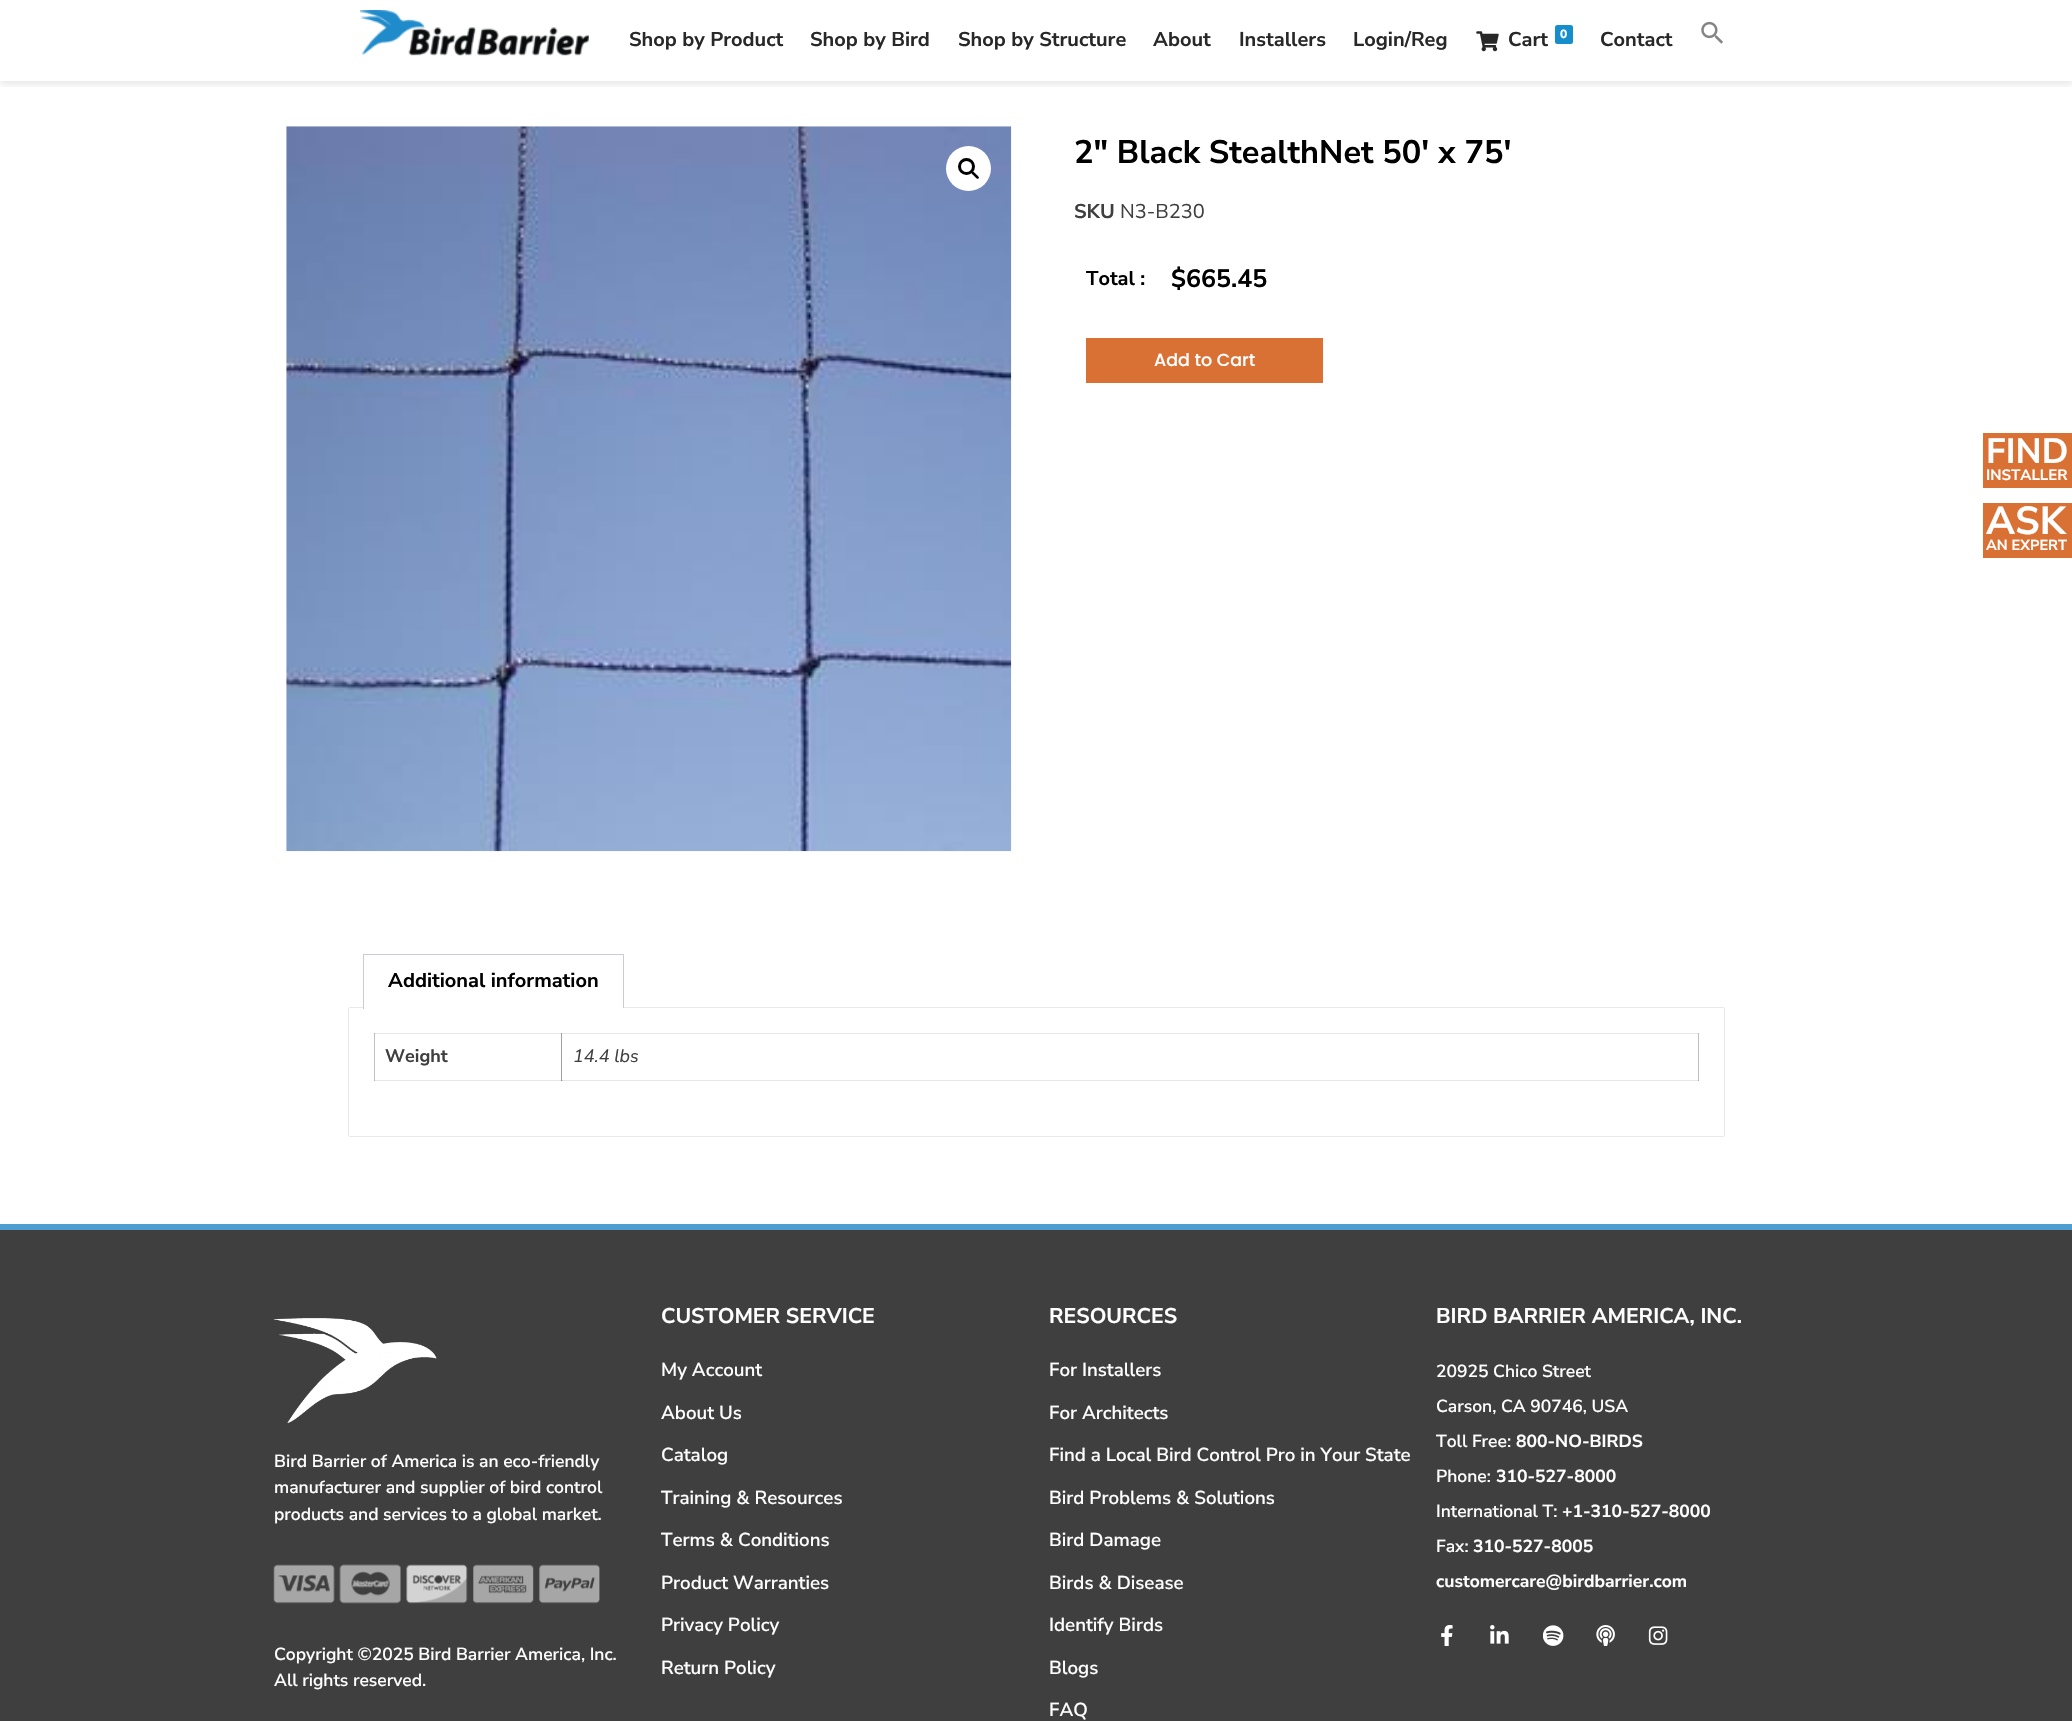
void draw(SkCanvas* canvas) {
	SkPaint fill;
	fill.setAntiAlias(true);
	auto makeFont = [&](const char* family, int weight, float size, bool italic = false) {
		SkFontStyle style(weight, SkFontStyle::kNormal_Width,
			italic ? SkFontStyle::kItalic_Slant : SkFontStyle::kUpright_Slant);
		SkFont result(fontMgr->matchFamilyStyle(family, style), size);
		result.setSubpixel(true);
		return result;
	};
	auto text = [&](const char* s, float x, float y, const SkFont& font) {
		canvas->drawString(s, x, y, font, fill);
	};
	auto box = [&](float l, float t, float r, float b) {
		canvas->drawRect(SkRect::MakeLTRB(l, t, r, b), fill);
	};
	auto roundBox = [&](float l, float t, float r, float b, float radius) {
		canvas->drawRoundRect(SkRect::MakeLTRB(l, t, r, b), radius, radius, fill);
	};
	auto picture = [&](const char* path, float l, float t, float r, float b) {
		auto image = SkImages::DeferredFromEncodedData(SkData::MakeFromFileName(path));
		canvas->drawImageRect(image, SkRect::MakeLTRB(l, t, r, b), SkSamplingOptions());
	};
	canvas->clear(0xFFFFFFFF);
	canvas->save();
	canvas->clipRect(SkRect::MakeLTRB(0, 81, 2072, 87));
	fill.setColor(0x1A000000);
	fill.setMaskFilter(SkMaskFilter::MakeBlur(kNormal_SkBlurStyle, 4));
	canvas->drawRect(SkRect::MakeLTRB(0, 3, 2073, 84), fill);
	fill.setMaskFilter(nullptr);
	canvas->restore();
	picture("image0.png", 360, 10, 589, 56);
	picture("image1.png", 1476, 31, 1499, 52);
	fill.setColor(0xFF168ECB);
	roundBox(1555, 25, 1573, 44, 2.5f);
	picture("image2.png", 1701, 21, 1723, 44);
	picture("image3.png", 286, 126, 1012, 852);
	fill.setColor(0xFFFFFFFF);
	canvas->drawCircle(968.5f, 168.5f, 22.5f, fill);
	fill.setStyle(SkPaint::kStroke_Style);
	fill.setStrokeWidth(3);
	fill.setColor(0xFF000000);
	canvas->drawCircle(966.5f, 166.5f, 7, fill);
	fill.setStyle(SkPaint::kFill_Style);
	canvas->drawPath(SkPathBuilder().moveTo(971.5f, 171.5f).cubicTo(973, 170, 975, 173.5f, 976, 174).cubicTo(976.5f, 175, 980, 177, 978.5f, 178.5f).cubicTo(977, 180, 975, 176.5f, 974, 176).cubicTo(973.5f, 175, 970, 173, 971.5f, 171.5f).close().detach(), fill);
	fill.setColor(0xFFDA7134);
	box(1086, 338, 1323, 383);
	fill.setColor(0x80000000);
	fill.setMaskFilter(SkMaskFilter::MakeBlur(kNormal_SkBlurStyle, 0.5f));
	canvas->drawRect(SkRect::MakeLTRB(349, 1008, 1724, 1136), fill);
	fill.setMaskFilter(nullptr);
	fill.setColor(0xFFFFFFFF);
	box(364, 1007, 623, 1008);
	fill.setColor(0xFFCFC8D8);
	box(363, 954, 624, 955);
	fill.setColor(0xFFFFFFFF);
	box(349, 1008, 1724, 1136);
	fill.setColor(0xFFCFC8D8);
	box(623, 954, 624, 1009);
	fill.setColor(0xFFFFFFFF);
	box(623, 1008, 624, 1009);
	fill.setColor(0xFFCFC8D8);
	box(363, 954, 364, 1009);
	fill.setColor(0xFFC0C0C0);
	box(374, 1033, 375, 1081);
	fill.setColor(0xFFE6E6E6);
	box(374, 1080, 563, 1081);
	fill.setColor(0xFFB3B3B3);
	box(374, 1080, 375, 1081);
	fill.setColor(0xFFA0A0A0);
	box(561, 1033, 562, 1081);
	fill.setColor(0xFFE6E6E6);
	box(561, 1080, 1699, 1081);
	fill.setColor(0xFFCFCFCF);
	box(561, 1080, 563, 1081);
	fill.setColor(0xFF8B8B8B);
	box(561, 1080, 562, 1081);
	fill.setColor(0xFFC0C0C0);
	box(1698, 1033, 1699, 1081);
	fill.setColor(0xFFADADAD);
	box(1698, 1080, 1699, 1081);
	fill.setColor(0xFFE6E6E6);
	box(374, 1033, 1699, 1034);
	fill.setColor(0xFFB3B3B3);
	box(374, 1033, 375, 1034);
	fill.setColor(0xFF9A9A9A);
	box(561, 1033, 562, 1034);
	fill.setColor(0xFFB3B3B3);
	box(1698, 1033, 1699, 1034);
	fill.setColor(0xFFDA7134);
	box(1983, 433, 2072, 488);
	box(1983, 503, 2072, 558);
	fill.setColor(0xFF3F3F3F);
	box(0, 1230, 2072, 1721);
	fill.setColor(0xFF4E9ED2);
	box(0, 1224, 2072, 1230);
	picture("image4.png", 273, 1318, 437, 1423);
	picture("image5.png", 273, 1564, 600, 1604);
	picture("image6.png", 1441, 1625, 1453, 1646);
	picture("image7.png", 1490, 1625, 1509, 1644);
	picture("image8.png", 1543, 1625, 1564, 1646);
	picture("image9.png", 1596, 1625, 1615, 1646);
	picture("image10.png", 1648, 1626, 1668, 1645);
	auto font1 = makeFont("Nunito Sans", 700, 20);
	fill.setColor(0xFF282828);
	text("Shop by Product", 629, 46, font1);
	text("Shop by Bird", 810, 46, font1);
	text("Shop by Structure", 958, 46, font1);
	text("About", 1153, 46, font1);
	text("Installers", 1239, 46, font1);
	text("Login/Reg", 1353, 46, font1);
	text("Cart", 1508, 46, font1);
	auto font2 = makeFont("Nunito Sans", 800, 12);
	fill.setColor(0xFFFFFFFF);
	text("0", 1560, 38, font2);
	fill.setColor(0xFF282828);
	text("Contact", 1600, 46, font1);
	auto font3 = makeFont("Nunito Sans", 700, 32.5f);
	fill.setColor(0xFF000000);
	text("2″ Black StealthNet 50′ x 75′", 1074, 163, font3);
	fill.setColor(0xFF3F3F3F);
	text("SKU", 1074, 218, font1);
	auto font4 = makeFont("Nunito Sans", 400, 20);
	text("N3-B230", 1120, 218, font4);
	fill.setColor(0xFF000000);
	text("Total :", 1086, 285, font1);
	auto font5 = makeFont("Nunito Sans", 700, 25);
	text("$665.45", 1171, 287, font5);
	auto font6 = makeFont("Poppins", 500, 17.5f);
	fill.setColor(0xFFFFFFFF);
	text("Add to Cart", 1154, 366, font6);
	fill.setColor(0xFF000000);
	text("Additional information", 388, 987, font1);
	auto font7 = makeFont("Nunito Sans", 700, 18);
	fill.setColor(0xFF3F3F3F);
	text("Weight", 385, 1062, font7);
	auto font8 = makeFont("Nunito Sans", 400, 18, true);
	text("14.4 lbs", 573, 1062, font8);
	auto font9 = makeFont("Nunito Sans", 700, 35);
	fill.setColor(0xFFFFFFFF);
	text("FIND", 1986, 463, font9);
	auto font10 = makeFont("Nunito Sans", 700, 15);
	text("INSTALLER", 1986, 480, font10);
	auto font11 = makeFont("Nunito Sans", 700, 39);
	text("ASK", 1986, 534, font11);
	auto font12 = makeFont("Nunito Sans", 700, 14.5f);
	text("AN EXPERT", 1986, 550, font12);
	auto font13 = makeFont("Nunito Sans", 600, 17.5f);
	text("Bird Barrier of America is an eco-friendly", 274, 1467, font13);
	text("manufacturer and supplier of bird control", 274, 1493, font13);
	text("products and services to a global market.", 274, 1520, font13);
	text("Copyright ©2025 Bird Barrier America, Inc.", 274, 1660, font13);
	text("All rights reserved.", 274, 1686, font13);
	auto font14 = makeFont("Nunito Sans", 700, 21.25f);
	text("CUSTOMER SERVICE", 661, 1323, font14);
	auto font15 = makeFont("Nunito Sans", 600, 18.75f);
	text("My Account", 661, 1376, font15);
	text("About Us", 661, 1419, font15);
	text("Catalog", 661, 1461, font15);
	text("Training & Resources", 661, 1504, font15);
	text("Terms & Conditions", 661, 1546, font15);
	text("Product Warranties", 661, 1589, font15);
	text("Privacy Policy", 661, 1631, font15);
	text("Return Policy", 661, 1674, font15);
	text("RESOURCES", 1049, 1323, font14);
	text("For Installers", 1049, 1376, font15);
	text("For Architects", 1049, 1419, font15);
	text("Find a Local Bird Control Pro in Your State", 1049, 1461, font15);
	text("Bird Problems & Solutions", 1049, 1504, font15);
	text("Bird Damage", 1049, 1546, font15);
	text("Birds & Disease", 1049, 1589, font15);
	text("Identify Birds", 1049, 1631, font15);
	text("Blogs", 1049, 1674, font15);
	text("FAQ", 1049, 1716, font15);
	text("BIRD BARRIER AMERICA, INC.", 1436, 1323, font14);
	text("20925 Chico Street", 1436, 1377, font13);
	text("Carson, CA 90746, USA", 1436, 1412, font13);
	text("Toll Free:", 1436, 1447, font13);
	auto font16 = makeFont("Nunito Sans", 700, 17.5f);
	text("800-NO-BIRDS", 1516, 1447, font16);
	text("Phone:", 1436, 1482, font13);
	text("310-527-8000", 1496, 1482, font16);
	text("International T:", 1436, 1517, font13);
	text("+1-310-527-8000", 1562, 1517, font16);
	text("Fax:", 1436, 1552, font13);
	text("310-527-8005", 1473, 1552, font16);
	text("customercare@birdbarrier.com", 1436, 1587, font16);
}
